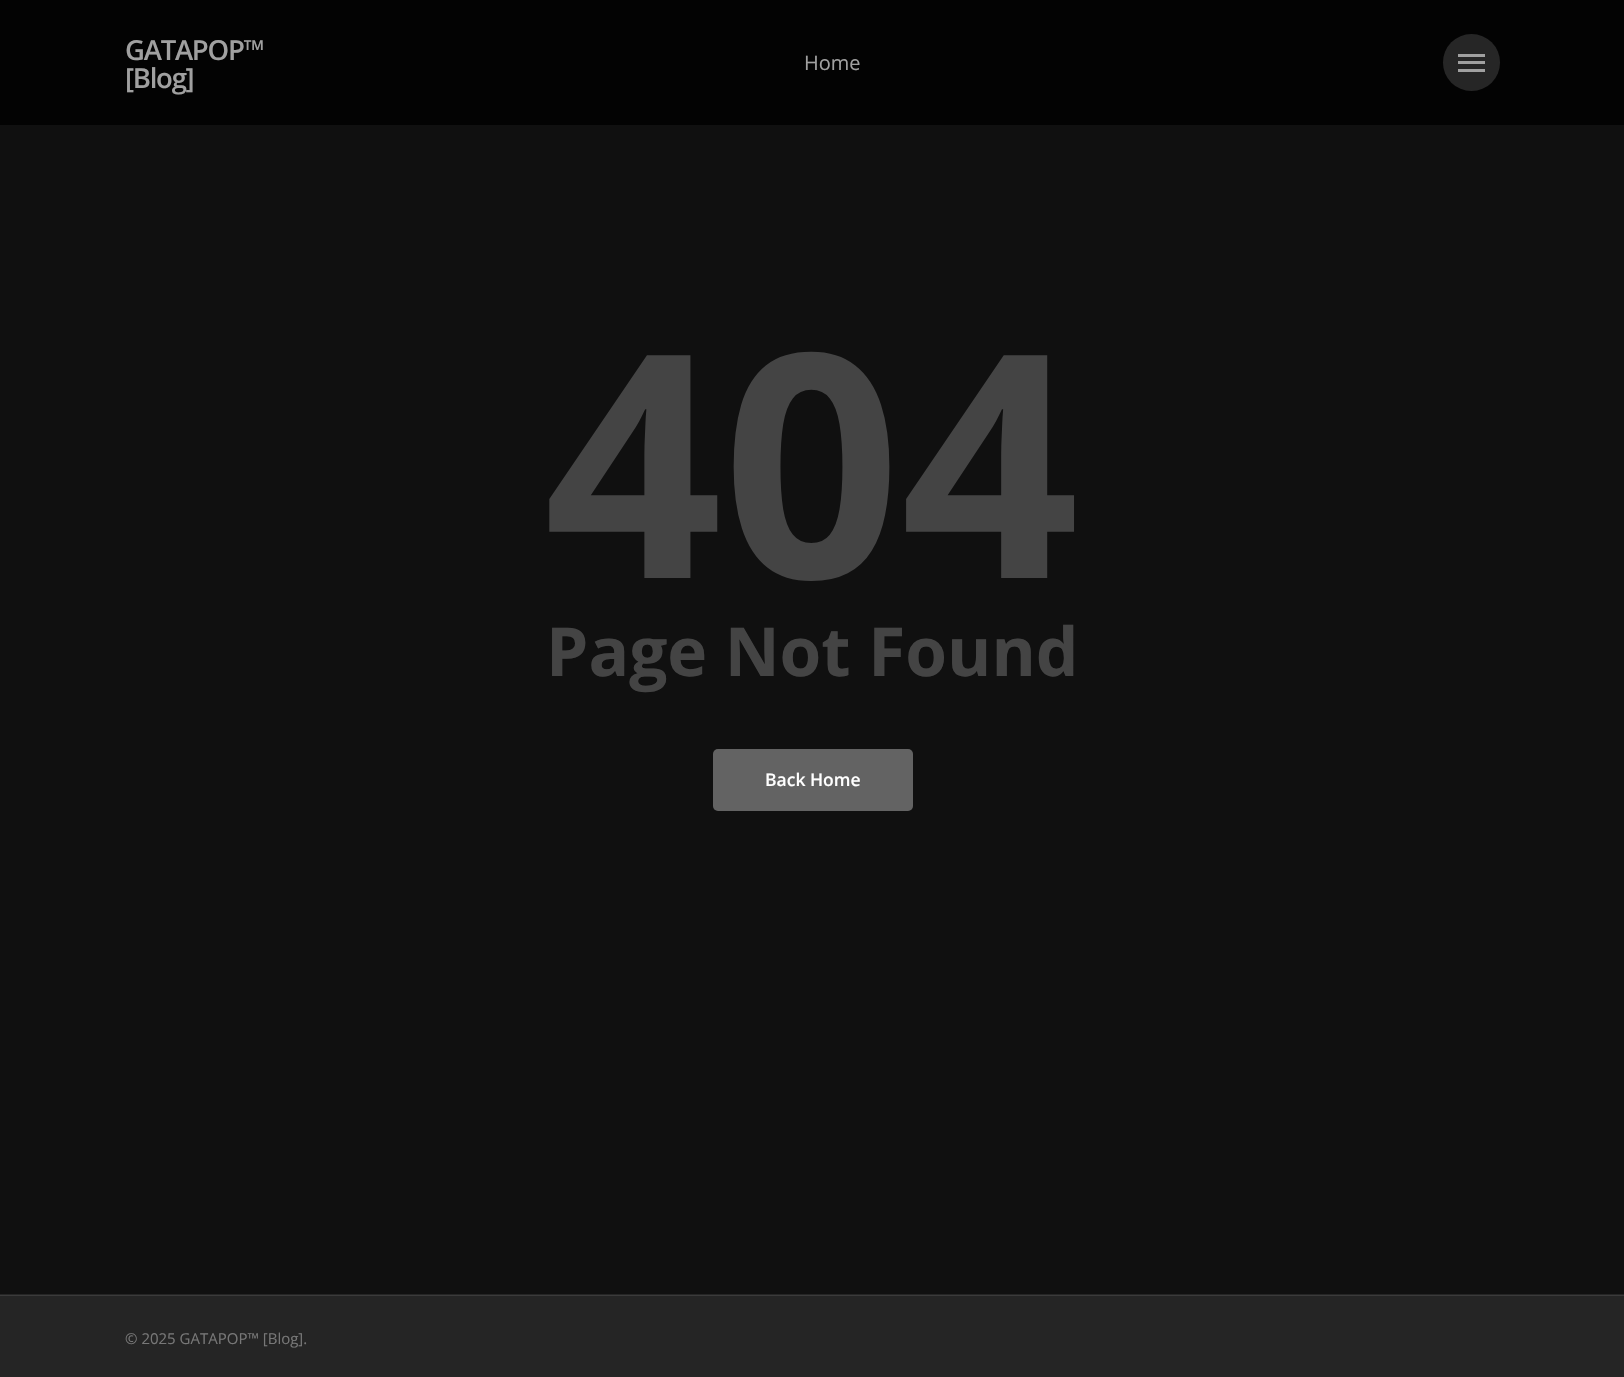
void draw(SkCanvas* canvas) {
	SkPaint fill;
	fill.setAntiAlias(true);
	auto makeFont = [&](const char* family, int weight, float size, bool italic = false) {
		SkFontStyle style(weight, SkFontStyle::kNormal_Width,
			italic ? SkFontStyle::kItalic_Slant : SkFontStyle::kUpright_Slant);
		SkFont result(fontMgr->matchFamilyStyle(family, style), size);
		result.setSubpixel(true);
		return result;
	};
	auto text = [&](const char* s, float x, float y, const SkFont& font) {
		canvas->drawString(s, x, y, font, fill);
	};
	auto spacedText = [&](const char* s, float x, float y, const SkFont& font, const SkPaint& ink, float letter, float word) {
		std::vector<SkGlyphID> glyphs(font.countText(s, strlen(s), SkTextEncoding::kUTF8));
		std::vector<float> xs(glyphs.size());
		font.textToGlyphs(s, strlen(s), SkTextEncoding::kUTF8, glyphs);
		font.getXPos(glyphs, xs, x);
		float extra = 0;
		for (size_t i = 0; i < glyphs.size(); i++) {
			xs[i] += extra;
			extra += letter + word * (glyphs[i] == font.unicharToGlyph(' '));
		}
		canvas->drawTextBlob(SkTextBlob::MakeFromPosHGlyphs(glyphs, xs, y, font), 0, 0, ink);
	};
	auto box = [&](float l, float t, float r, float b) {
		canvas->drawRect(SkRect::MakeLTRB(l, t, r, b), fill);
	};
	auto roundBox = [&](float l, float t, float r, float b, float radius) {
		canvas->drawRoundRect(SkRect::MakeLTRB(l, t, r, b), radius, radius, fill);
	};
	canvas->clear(0xFF101010);
	fill.setColor(0xFF030303);
	box(0, 0, 1624, 125);
	fill.setColor(0xFF262626);
	canvas->drawCircle(1471.5f, 62.5f, 28.5f, fill);
	fill.setColor(0xFFA0A0A0);
	box(1458, 54, 1485, 57);
	box(1458, 69, 1485, 72);
	box(1458, 61, 1485, 64);
	fill.setColor(0xFF636363);
	roundBox(713, 749, 913, 811, 5);
	fill.setColor(0xFF252525);
	box(0, 1294, 1624, 1377);
	fill.setColor(0xFF3B3B3B);
	box(0, 1295, 1624, 1296);
	auto font1 = makeFont("Open Sans", 600, 27.5f);
	fill.setColor(0xFFA0A0A0);
	spacedText("GATAPOP™", 125, 60, font1, fill, -1.25f, 0);
	spacedText("[Blog]", 125, 88, font1, fill, -1.25f, 0);
	auto font2 = makeFont("Open Sans", 400, 20);
	text("Home", 804, 70, font2);
	auto font3 = makeFont("Open Sans", 700, 312);
	fill.setColor(0xFF444444);
	text("404", 544, 578, font3);
	auto font4 = makeFont("Open Sans", 700, 67.5f);
	text("Page Not Found", 546, 676, font4);
	auto font5 = makeFont("Open Sans", 600, 17.5f);
	fill.setColor(0xFFFFFFFF);
	text("Back Home", 765, 786, font5);
	auto font6 = makeFont("Open Sans", 400, 15);
	fill.setColor(0xFF777777);
	text("© 2025 GATAPOP™ [Blog].", 125, 1344, font6);
}
